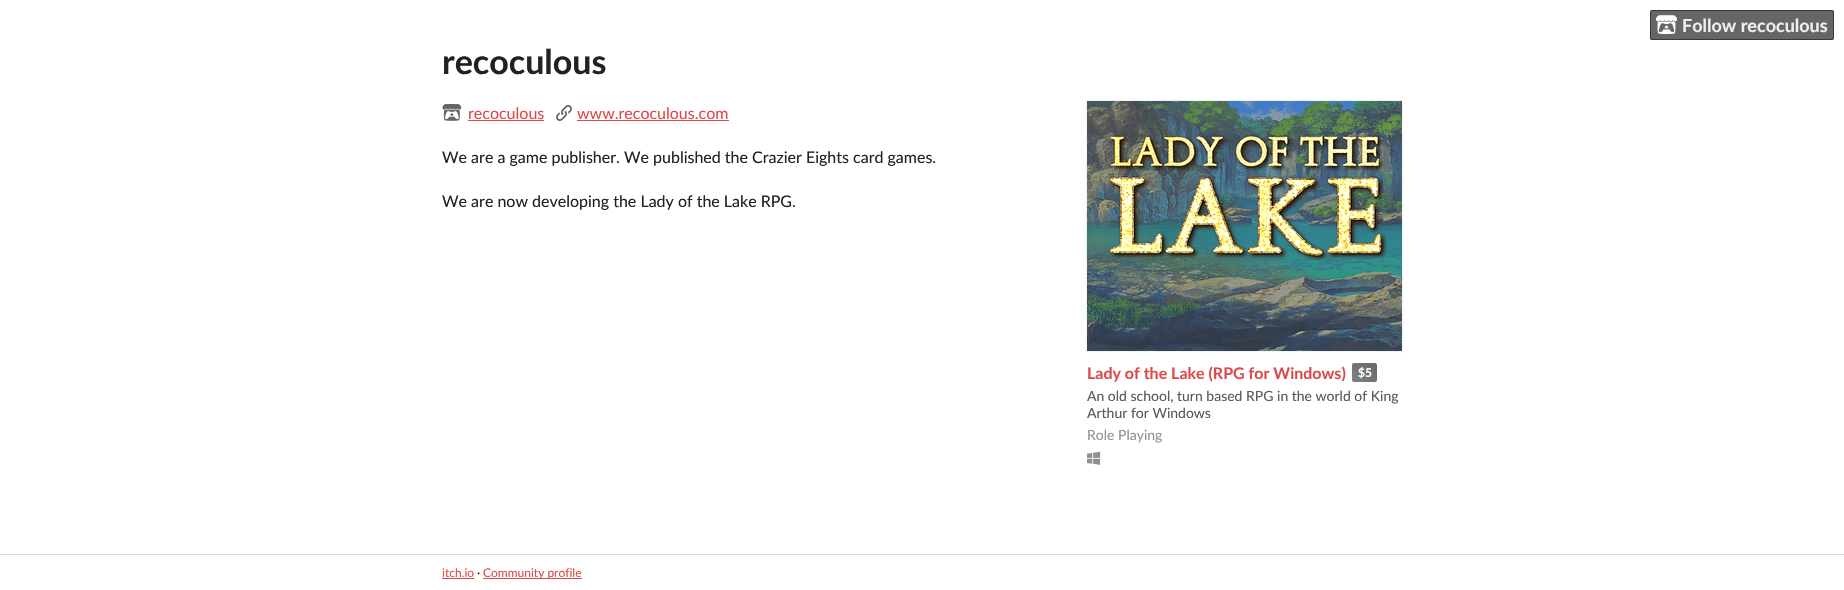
void draw(SkCanvas* canvas) {
	SkPaint fill;
	fill.setAntiAlias(true);
	auto makeFont = [&](const char* family, int weight, float size, bool italic = false) {
		SkFontStyle style(weight, SkFontStyle::kNormal_Width,
			italic ? SkFontStyle::kItalic_Slant : SkFontStyle::kUpright_Slant);
		SkFont result(fontMgr->matchFamilyStyle(family, style), size);
		result.setSubpixel(true);
		return result;
	};
	auto text = [&](const char* s, float x, float y, const SkFont& font) {
		canvas->drawString(s, x, y, font, fill);
	};
	auto box = [&](float l, float t, float r, float b) {
		canvas->drawRect(SkRect::MakeLTRB(l, t, r, b), fill);
	};
	auto roundBox = [&](float l, float t, float r, float b, float radius) {
		canvas->drawRoundRect(SkRect::MakeLTRB(l, t, r, b), radius, radius, fill);
	};
	auto picture = [&](const char* path, float l, float t, float r, float b) {
		auto image = SkImages::DeferredFromEncodedData(SkData::MakeFromFileName(path));
		canvas->drawImageRect(image, SkRect::MakeLTRB(l, t, r, b), SkSamplingOptions());
	};
	canvas->clear(0xFFFFFFFF);
	fill.setColor(0xFF666666);
	roundBox(1650, 10, 1834, 40, 2);
	fill.setStyle(SkPaint::kStroke_Style);
	fill.setStrokeWidth(1);
	fill.setColor(0x800A0A0A);
	canvas->drawRoundRect(SkRect::MakeLTRB(1650.5f, 10.5f, 1833.5f, 39.5f), 1.5f, 1.5f, fill);
	picture("image0.png", 1656, 15, 1677, 35);
	picture("image1.png", 442, 104, 462, 121);
	fill.setStyle(SkPaint::kFill_Style);
	fill.setColor(0xFFDD4A4A);
	box(468, 120, 544, 121);
	picture("image2.png", 556, 105, 572, 121);
	box(577, 120, 729, 121);
	fill.setColor(0x26000000);
	fill.setMaskFilter(SkMaskFilter::MakeBlur(kNormal_SkBlurStyle, 1));
	canvas->drawRect(SkRect::MakeLTRB(1087, 101, 1402, 351), fill);
	fill.setMaskFilter(nullptr);
	picture("image3.png", 1087, 101, 1402, 351);
	{
		const SkColor colors[] = {0xFF808080, 0xFF676767};
		const float stops[] = {0, 1};
		const SkPoint ends[] = {{1355, 385}, {1374, 360}};
		fill.setShader(SkGradientShader::MakeLinear(ends, colors, stops, 2, SkTileMode::kClamp));
		fill.setAlpha(255);
	}
	roundBox(1352, 363, 1377, 382, 2);
	picture("image4.png", 1087, 451, 1101, 465);
	fill.setShader(nullptr);
	fill.setColor(0xFFD8D8D8);
	box(0, 554, 1844, 555);
	fill.setColor(0xFFDD4A4A);
	box(442, 578, 474, 579);
	box(483, 578, 582, 579);
	auto font1 = makeFont("Lato", 700, 18);
	fill.setColor(0xFFEEEEEE);
	text("Follow recoculous", 1682, 32, font1);
	auto font2 = makeFont("Lato", 700, 34);
	fill.setColor(0xFF222222);
	text("recoculous", 442, 74, font2);
	auto font3 = makeFont("Lato", 400, 16);
	fill.setColor(0xFFDD4A4A);
	text("recoculous", 468, 119, font3);
	text("www.recoculous.com", 577, 119, font3);
	fill.setColor(0xFF222222);
	text("We are a game publisher. We published the Crazier Eights card games.", 442, 163, font3);
	text("We are now developing the Lady of the Lake RPG.", 442, 207, font3);
	auto font4 = makeFont("Lato", 700, 16);
	fill.setColor(0xFFDD4A4A);
	text("Lady of the Lake (RPG for Windows)", 1087, 379, font4);
	auto font5 = makeFont("Lato", 700, 12);
	fill.setColor(0xFFFFFFFF);
	text("$5", 1358, 377, font5);
	auto font6 = makeFont("Lato", 400, 14);
	fill.setColor(0xFF595959);
	text("An old school, turn based RPG in the world of King", 1087, 401, font6);
	text("Arthur for Windows", 1087, 418, font6);
	fill.setColor(0xFF919191);
	text("Role Playing", 1087, 440, font6);
	auto font7 = makeFont("Lato", 400, 12);
	fill.setColor(0xFFDD4A4A);
	text("itch.io", 442, 577, font7);
	fill.setColor(0xFF222222);
	text("·", 477, 577, font7);
	fill.setColor(0xFFDD4A4A);
	text("Community profile", 483, 577, font7);
}
